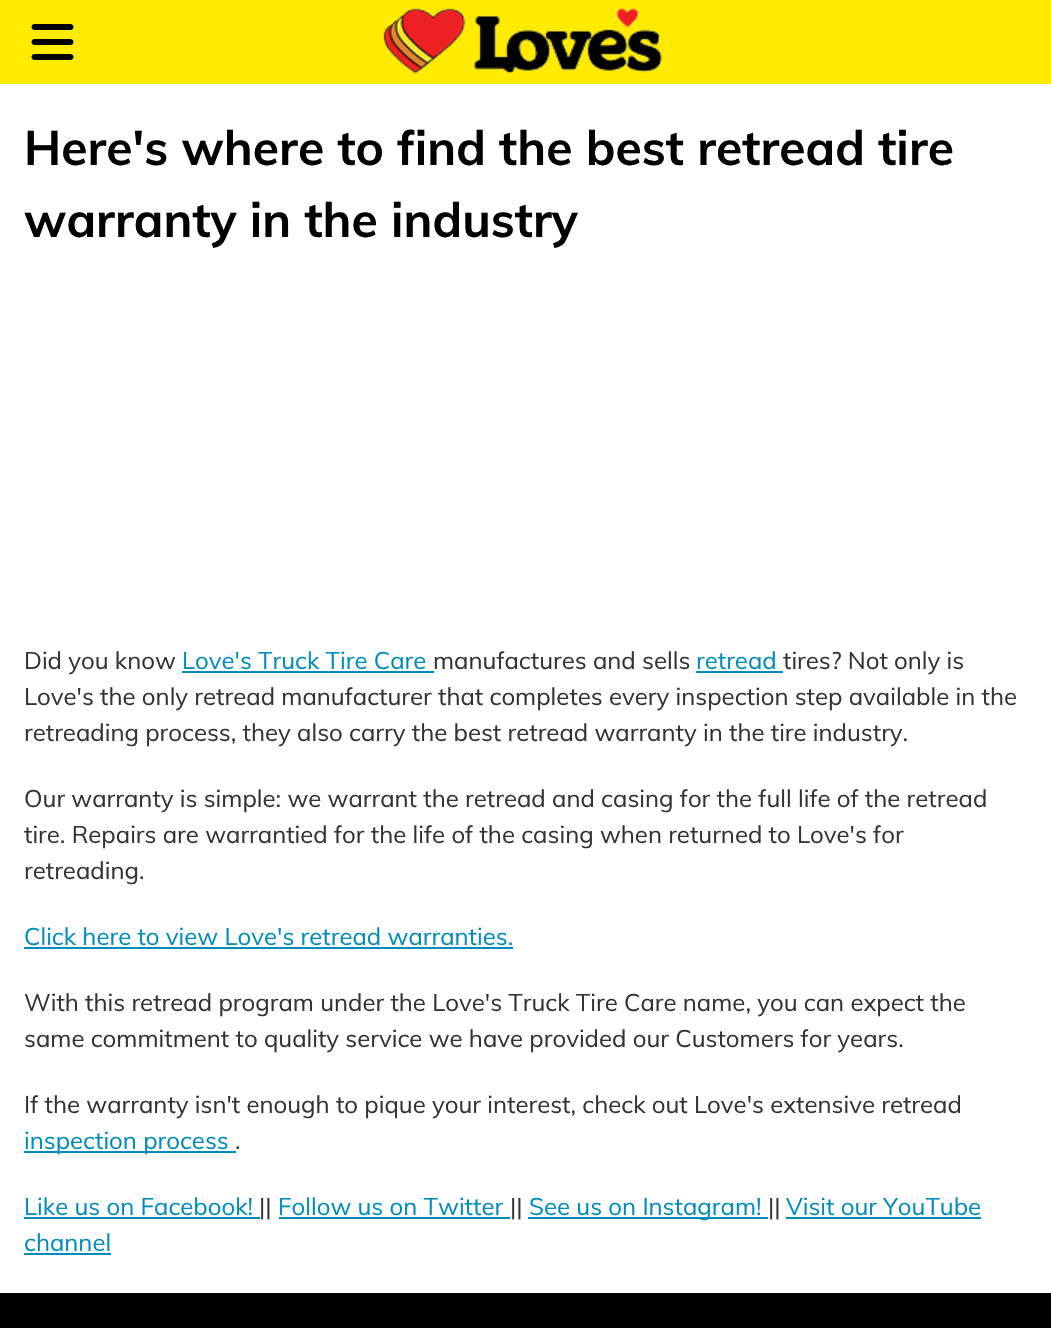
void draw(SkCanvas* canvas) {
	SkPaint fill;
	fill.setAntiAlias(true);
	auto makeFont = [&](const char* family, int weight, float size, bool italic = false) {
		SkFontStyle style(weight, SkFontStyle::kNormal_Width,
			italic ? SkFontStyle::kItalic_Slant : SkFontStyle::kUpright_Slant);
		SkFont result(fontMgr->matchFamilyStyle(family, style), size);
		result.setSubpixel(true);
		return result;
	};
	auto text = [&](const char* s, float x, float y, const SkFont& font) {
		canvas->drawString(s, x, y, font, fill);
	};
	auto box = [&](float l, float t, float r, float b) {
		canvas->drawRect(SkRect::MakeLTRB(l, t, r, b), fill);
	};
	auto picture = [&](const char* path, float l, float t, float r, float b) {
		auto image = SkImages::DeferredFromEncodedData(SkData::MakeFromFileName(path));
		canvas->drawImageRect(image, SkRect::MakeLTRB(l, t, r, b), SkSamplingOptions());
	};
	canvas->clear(0xFFFFFFFF);
	fill.setColor(0xFFFFEB00);
	box(0, 0, 1051, 84);
	picture("image0.png", 31, 24, 74, 60);
	picture("image1.png", 383, 8, 662, 74);
	fill.setColor(0xFF008CBA);
	box(182, 671, 434, 673);
	box(696, 671, 783, 673);
	box(24, 947, 513, 949);
	box(24, 1151, 236, 1153);
	box(24, 1217, 260, 1219);
	box(279, 1217, 510, 1219);
	box(528, 1217, 768, 1219);
	box(786, 1217, 981, 1219);
	box(24, 1253, 111, 1255);
	fill.setColor(0xFF000000);
	box(0, 1293, 1051, 1328);
	auto font1 = makeFont("Muli", 700, 48);
	text("Here's where to find the best retread tire", 24, 165, font1);
	text("warranty in the industry", 24, 237, font1);
	auto font2 = makeFont("Muli", 400, 24);
	fill.setColor(0xFF333333);
	text("Did you know", 24, 669, font2);
	fill.setColor(0xFF008CBA);
	text("Love's Truck Tire Care", 182, 669, font2);
	fill.setColor(0xFF333333);
	text("manufactures and sells", 433, 669, font2);
	fill.setColor(0xFF008CBA);
	text("retread", 696, 669, font2);
	fill.setColor(0xFF333333);
	text("tires? Not only is", 783, 669, font2);
	text("Love's the only retread manufacturer that completes every inspection step available in the", 24, 705, font2);
	text("retreading process, they also carry the best retread warranty in the tire industry.", 24, 741, font2);
	text("Our warranty is simple: we warrant the retread and casing for the full life of the retread", 24, 807, font2);
	text("tire. Repairs are warrantied for the life of the casing when returned to Love's for", 24, 843, font2);
	text("retreading.", 24, 879, font2);
	fill.setColor(0xFF008CBA);
	text("Click here to view Love's retread warranties.", 24, 945, font2);
	fill.setColor(0xFF333333);
	text("With this retread program under the Love's Truck Tire Care name, you can expect the", 24, 1011, font2);
	text("same commitment to quality service we have provided our Customers for years.", 24, 1047, font2);
	text("If the warranty isn't enough to pique your interest, check out Love's extensive retread", 24, 1113, font2);
	fill.setColor(0xFF008CBA);
	text("inspection process", 24, 1149, font2);
	fill.setColor(0xFF333333);
	text(".", 235, 1149, font2);
	fill.setColor(0xFF008CBA);
	text("Like us on Facebook!", 24, 1215, font2);
	fill.setColor(0xFF333333);
	text("||", 259, 1215, font2);
	fill.setColor(0xFF008CBA);
	text("Follow us on Twitter", 278, 1215, font2);
	fill.setColor(0xFF333333);
	text("||", 510, 1215, font2);
	fill.setColor(0xFF008CBA);
	text("See us on Instagram!", 529, 1215, font2);
	fill.setColor(0xFF333333);
	text("||", 768, 1215, font2);
	fill.setColor(0xFF008CBA);
	text("Visit our YouTube", 786, 1215, font2);
	text("channel", 24, 1251, font2);
}
